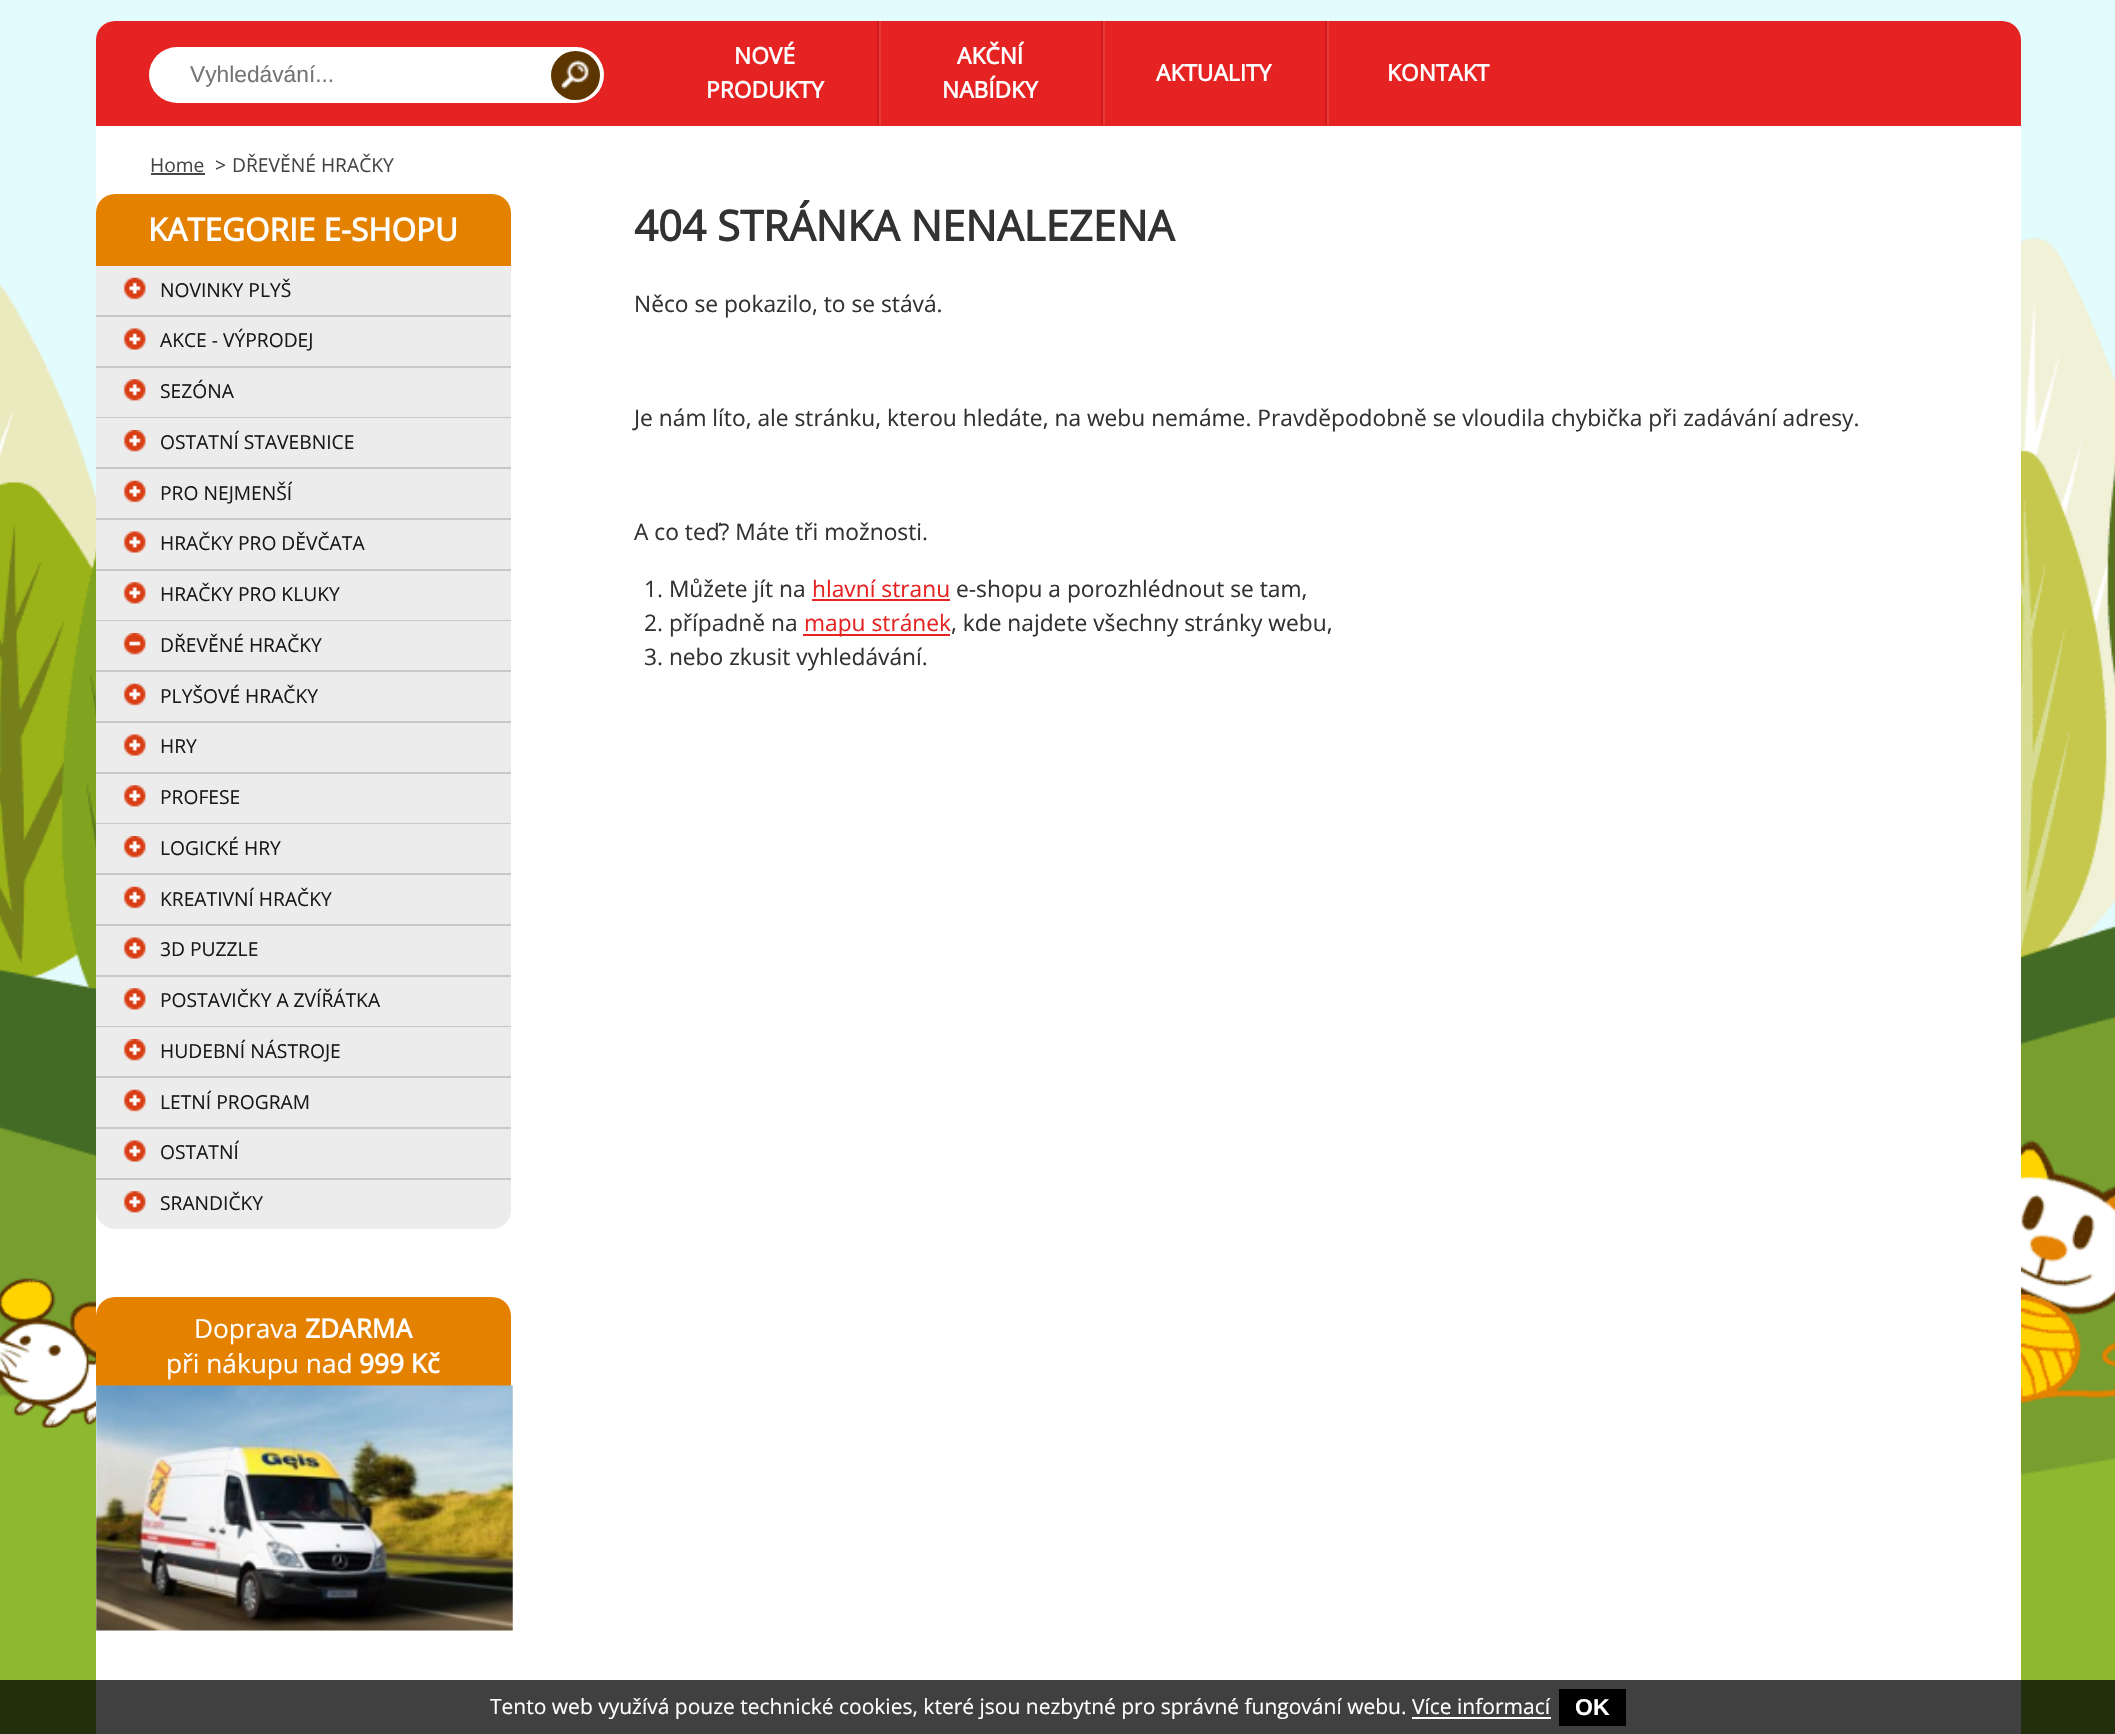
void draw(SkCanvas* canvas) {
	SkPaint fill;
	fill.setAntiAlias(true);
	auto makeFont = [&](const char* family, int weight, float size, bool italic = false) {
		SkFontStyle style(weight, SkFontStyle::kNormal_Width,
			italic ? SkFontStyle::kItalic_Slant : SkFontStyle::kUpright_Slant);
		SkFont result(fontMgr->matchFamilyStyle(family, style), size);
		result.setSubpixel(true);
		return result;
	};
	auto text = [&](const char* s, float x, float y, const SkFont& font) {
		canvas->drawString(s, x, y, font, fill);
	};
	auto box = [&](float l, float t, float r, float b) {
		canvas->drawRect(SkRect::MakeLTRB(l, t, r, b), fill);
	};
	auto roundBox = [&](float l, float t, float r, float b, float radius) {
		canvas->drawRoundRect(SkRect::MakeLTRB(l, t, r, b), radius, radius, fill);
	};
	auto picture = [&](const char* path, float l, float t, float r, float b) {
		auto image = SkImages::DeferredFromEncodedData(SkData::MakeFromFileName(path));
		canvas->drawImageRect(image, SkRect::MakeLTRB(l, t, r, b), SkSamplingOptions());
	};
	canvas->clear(0xFF8DB930);
	fill.setColor(0xFF232E0C);
	box(0, 1680, 2115, 1734);
	picture("image0.png", 0, 0, 2115, 1521);
	fill.setColor(0xFFE42322);
	canvas->drawPath(SkPathBuilder().moveTo(115, 21).lineTo(2002, 21).cubicTo(2012.5f, 21, 2021, 29.5f, 2021, 40).lineTo(2021, 126).lineTo(96, 126).lineTo(96, 40).cubicTo(96, 29.5f, 104.5f, 21, 115, 21).close().detach(), fill);
	fill.setColor(0xFFFFFFFF);
	roundBox(149, 47, 604, 103, 28);
	fill.setColor(0xFF5D3500);
	canvas->drawCircle(575.5f, 75.5f, 24.5f, fill);
	picture("image1.png", 561, 60, 590, 89);
	fill.setColor(0xFFD41C1B);
	box(877, 21, 879, 126);
	box(1101, 21, 1103, 126);
	fill.setColor(0xFFE73939);
	box(879, 21, 881, 126);
	fill.setColor(0xFFD41C1B);
	box(1325, 21, 1327, 126);
	fill.setColor(0xFFE73939);
	box(1103, 21, 1105, 126);
	box(1327, 21, 1329, 126);
	fill.setColor(0xFFFFFFFF);
	box(96, 126, 2021, 1680);
	fill.setColor(0xFF404040);
	box(96, 1680, 2021, 1734);
	fill.setColor(0xFF464646);
	box(151, 173, 205, 175);
	fill.setColor(0xFFE48200);
	canvas->drawPath(SkPathBuilder().moveTo(115, 194).lineTo(492, 194).cubicTo(502.5f, 194, 511, 202.5f, 511, 213).lineTo(511, 266).lineTo(96, 266).lineTo(96, 213).cubicTo(96, 202.5f, 104.5f, 194, 115, 194).close().detach(), fill);
	fill.setColor(0xFFC7C7C7);
	box(96, 315, 511, 317);
	fill.setColor(0xFFECECEC);
	box(96, 266, 511, 315);
	picture("image2.png", 123, 277, 146, 300);
	fill.setColor(0xFFC7C7C7);
	box(96, 366, 511, 368);
	fill.setColor(0xFFECECEC);
	box(96, 317, 511, 366);
	picture("image3.png", 123, 328, 146, 350);
	fill.setColor(0xFFC7C7C7);
	box(96, 417, 511, 418);
	fill.setColor(0xFFECECEC);
	box(96, 368, 511, 417);
	picture("image4.png", 123, 379, 146, 401);
	fill.setColor(0xFFC7C7C7);
	box(96, 467, 511, 469);
	fill.setColor(0xFFECECEC);
	box(96, 418, 511, 467);
	picture("image5.png", 123, 430, 146, 452);
	fill.setColor(0xFFC7C7C7);
	box(96, 518, 511, 520);
	fill.setColor(0xFFECECEC);
	box(96, 469, 511, 518);
	picture("image2.png", 123, 480, 146, 503);
	fill.setColor(0xFFC7C7C7);
	box(96, 569, 511, 571);
	fill.setColor(0xFFECECEC);
	box(96, 520, 511, 569);
	picture("image3.png", 123, 531, 146, 553);
	fill.setColor(0xFFC7C7C7);
	box(96, 620, 511, 621);
	fill.setColor(0xFFECECEC);
	box(96, 571, 511, 620);
	picture("image4.png", 123, 582, 146, 604);
	fill.setColor(0xFFC7C7C7);
	box(96, 670, 511, 672);
	fill.setColor(0xFFECECEC);
	box(96, 621, 511, 670);
	picture("image6.png", 123, 633, 146, 655);
	fill.setColor(0xFFC7C7C7);
	box(96, 721, 511, 723);
	fill.setColor(0xFFECECEC);
	box(96, 672, 511, 721);
	picture("image2.png", 123, 683, 146, 706);
	fill.setColor(0xFFC7C7C7);
	box(96, 772, 511, 774);
	fill.setColor(0xFFECECEC);
	box(96, 723, 511, 772);
	picture("image3.png", 123, 734, 146, 756);
	fill.setColor(0xFFC7C7C7);
	box(96, 823, 511, 824);
	fill.setColor(0xFFECECEC);
	box(96, 774, 511, 823);
	picture("image4.png", 123, 785, 146, 807);
	fill.setColor(0xFFC7C7C7);
	box(96, 873, 511, 875);
	fill.setColor(0xFFECECEC);
	box(96, 824, 511, 873);
	picture("image5.png", 123, 836, 146, 858);
	fill.setColor(0xFFC7C7C7);
	box(96, 924, 511, 926);
	fill.setColor(0xFFECECEC);
	box(96, 875, 511, 924);
	picture("image2.png", 123, 886, 146, 909);
	fill.setColor(0xFFC7C7C7);
	box(96, 975, 511, 977);
	fill.setColor(0xFFECECEC);
	box(96, 926, 511, 975);
	picture("image3.png", 123, 937, 146, 959);
	fill.setColor(0xFFC7C7C7);
	box(96, 1026, 511, 1027);
	fill.setColor(0xFFECECEC);
	box(96, 977, 511, 1026);
	picture("image4.png", 123, 988, 146, 1010);
	fill.setColor(0xFFC7C7C7);
	box(96, 1076, 511, 1078);
	fill.setColor(0xFFECECEC);
	box(96, 1027, 511, 1076);
	picture("image5.png", 123, 1039, 146, 1061);
	fill.setColor(0xFFC7C7C7);
	box(96, 1127, 511, 1129);
	fill.setColor(0xFFECECEC);
	box(96, 1078, 511, 1127);
	picture("image2.png", 123, 1089, 146, 1112);
	fill.setColor(0xFFC7C7C7);
	box(96, 1178, 511, 1180);
	fill.setColor(0xFFECECEC);
	box(96, 1129, 511, 1178);
	picture("image3.png", 123, 1140, 146, 1162);
	canvas->drawPath(SkPathBuilder().moveTo(96, 1180).lineTo(511, 1180).lineTo(511, 1210).cubicTo(511, 1220.5f, 502.5f, 1229, 492, 1229).lineTo(115, 1229).cubicTo(104.5f, 1229, 96, 1220.5f, 96, 1210).close().detach(), fill);
	picture("image4.png", 123, 1191, 146, 1213);
	fill.setColor(0xFFE48200);
	canvas->drawPath(SkPathBuilder().moveTo(115, 1297).lineTo(492, 1297).cubicTo(502.5f, 1297, 511, 1305.5f, 511, 1316).lineTo(511, 1386).lineTo(96, 1386).lineTo(96, 1316).cubicTo(96, 1305.5f, 104.5f, 1297, 115, 1297).close().detach(), fill);
	picture("image7.png", 96, 1385, 513, 1631);
	fill.setColor(0xFFE42322);
	box(812, 599, 950, 601);
	box(803, 634, 950, 636);
	fill.setColor(0xFFFFFFFF);
	box(1412, 1717, 1551, 1719);
	fill.setColor(0xFF000000);
	box(1559, 1689, 1626, 1726);
	auto font1 = makeFont("Liberation Sans", 400, 22.75f);
	fill.setColor(0xFF757575);
	text("Vyhledávání...", 190, 82, font1);
	auto font2 = makeFont("Open Sans", 700, 22.75f);
	fill.setColor(0xFFFFFFFF);
	text("NOVÉ", 734, 64, font2);
	text("PRODUKTY", 706, 98, font2);
	text("AKČNÍ", 957, 64, font2);
	text("NABÍDKY", 942, 98, font2);
	text("AKTUALITY", 1156, 81, font2);
	text("KONTAKT", 1387, 81, font2);
	auto font3 = makeFont("Open Sans", 400, 19.25f);
	fill.setColor(0xFF464646);
	text("Home", 150, 172, font3);
	text(">", 215, 172, font3);
	text("DŘEVĚNÉ HRAČKY", 232, 172, font3);
	auto font4 = makeFont("Open Sans", 700, 31.5f);
	fill.setColor(0xFFFFFFFF);
	text("KATEGORIE E-SHOPU", 148, 241, font4);
	fill.setColor(0xFF191919);
	text("NOVINKY PLYŠ", 160, 297, font3);
	text("AKCE - VÝPRODEJ", 160, 347, font3);
	text("SEZÓNA", 160, 398, font3);
	text("OSTATNÍ STAVEBNICE", 160, 449, font3);
	text("PRO NEJMENŠÍ", 160, 500, font3);
	text("HRAČKY PRO DĚVČATA", 160, 550, font3);
	text("HRAČKY PRO KLUKY", 160, 601, font3);
	text("DŘEVĚNÉ HRAČKY", 160, 652, font3);
	text("PLYŠOVÉ HRAČKY", 160, 703, font3);
	text("HRY", 160, 753, font3);
	text("PROFESE", 160, 804, font3);
	text("LOGICKÉ HRY", 160, 855, font3);
	text("KREATIVNÍ HRAČKY", 160, 906, font3);
	text("3D PUZZLE", 160, 956, font3);
	text("POSTAVIČKY A ZVÍŘÁTKA", 160, 1007, font3);
	text("HUDEBNÍ NÁSTROJE", 160, 1058, font3);
	text("LETNÍ PROGRAM", 160, 1109, font3);
	text("OSTATNÍ", 160, 1159, font3);
	text("SRANDIČKY", 160, 1210, font3);
	auto font5 = makeFont("Open Sans", 400, 26.25f);
	fill.setColor(0xFFFFFFFF);
	text("Doprava", 194, 1338, font5);
	auto font6 = makeFont("Open Sans", 700, 26.25f);
	text("ZDARMA", 305, 1338, font6);
	text("při nákupu nad", 166, 1373, font5);
	text("999 Kč", 359, 1373, font6);
	auto font7 = makeFont("Open Sans", 700, 42);
	fill.setColor(0xFF323232);
	text("404 STRÁNKA NENALEZENA", 634, 241, font7);
	auto font8 = makeFont("Open Sans", 400, 22.75f);
	text("Něco se pokazilo, to se stává.", 634, 312, font8);
	text("Je nám líto, ale stránku, kterou hledáte, na webu nemáme. Pravděpodobně se vloudila chybička při zadávání adresy.", 634, 426, font8);
	text("A co teď? Máte tři možnosti.", 634, 540, font8);
	text("1. Můžete jít na", 644, 597, font8);
	fill.setColor(0xFFE42322);
	text("hlavní stranu", 812, 597, font8);
	fill.setColor(0xFF323232);
	text("e-shopu a porozhlédnout se tam,", 956, 597, font8);
	text("2. případně na", 644, 631, font8);
	fill.setColor(0xFFE42322);
	text("mapu stránek", 804, 631, font8);
	fill.setColor(0xFF323232);
	text(", kde najdete všechny stránky webu,", 951, 631, font8);
	text("3. nebo zkusit vyhledávání.", 644, 665, font8);
	auto font9 = makeFont("Open Sans", 400, 21);
	fill.setColor(0xFFFFFFFF);
	text("Tento web využívá pouze technické cookies, které jsou nezbytné pro správné fungování webu. Více informací", 490, 1714, font9);
	auto font10 = makeFont("Liberation Sans", 700, 23);
	text("OK", 1575, 1715, font10);
}
